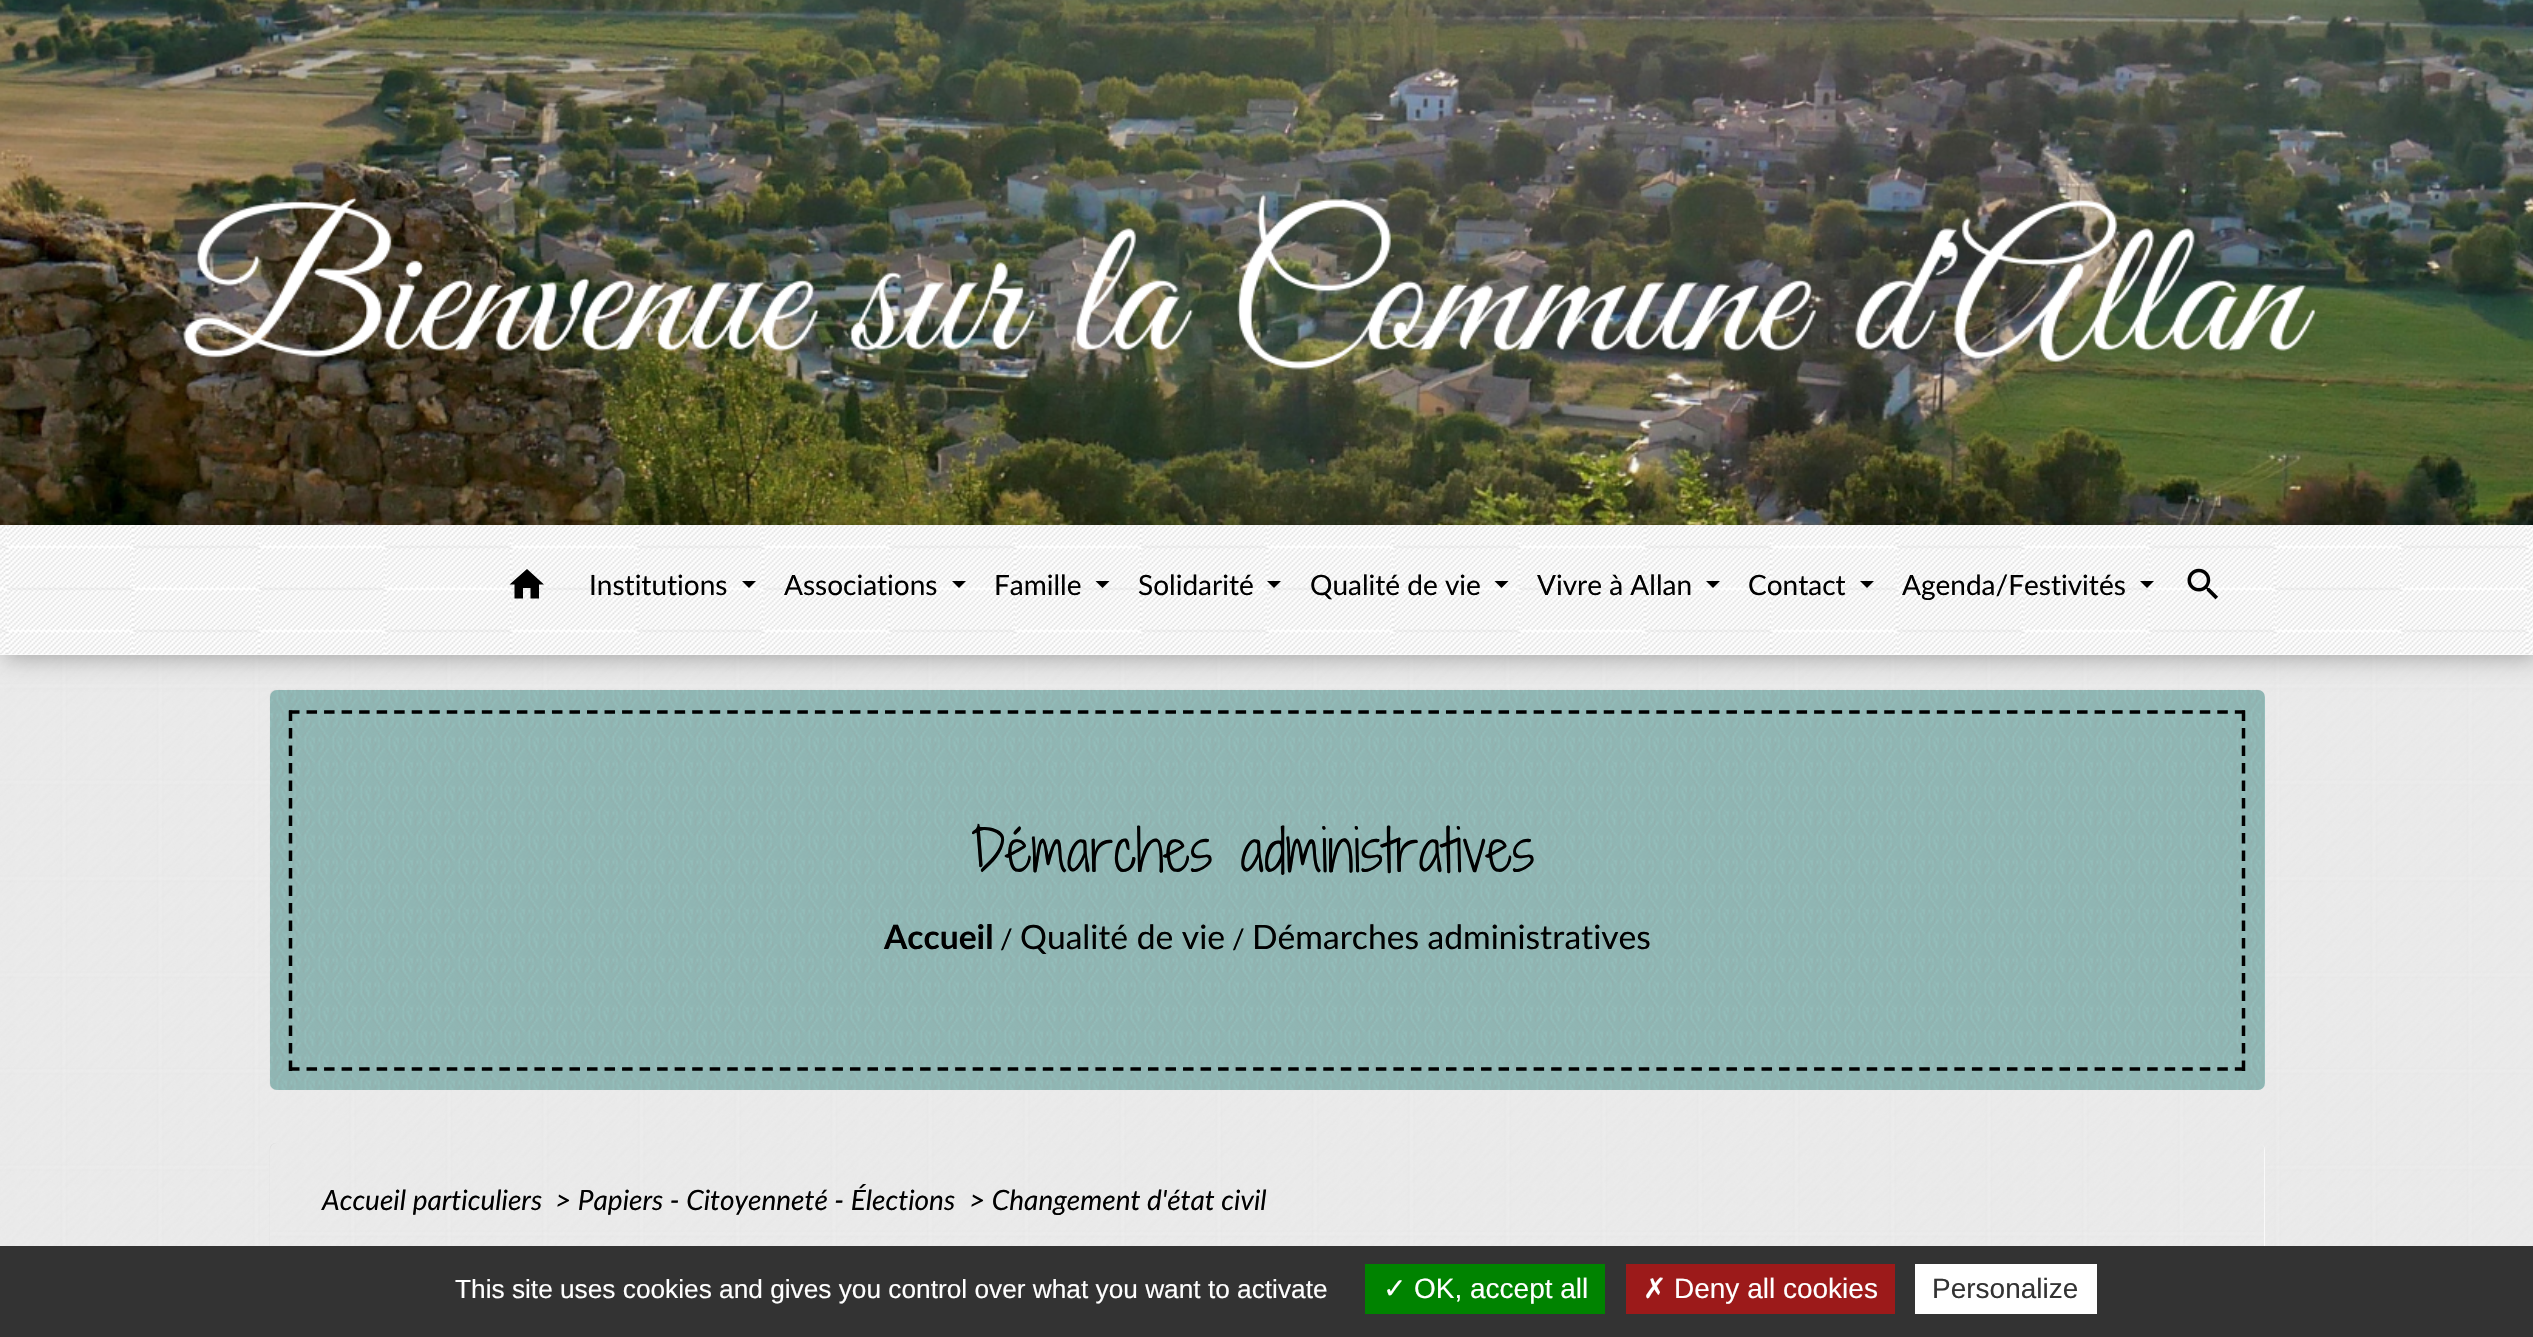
void draw(SkCanvas* canvas) {
	SkPaint fill;
	fill.setAntiAlias(true);
	auto makeFont = [&](const char* family, int weight, float size, bool italic = false) {
		SkFontStyle style(weight, SkFontStyle::kNormal_Width,
			italic ? SkFontStyle::kItalic_Slant : SkFontStyle::kUpright_Slant);
		SkFont result(fontMgr->matchFamilyStyle(family, style), size);
		result.setSubpixel(true);
		return result;
	};
	auto text = [&](const char* s, float x, float y, const SkFont& font) {
		canvas->drawString(s, x, y, font, fill);
	};
	auto box = [&](float l, float t, float r, float b) {
		canvas->drawRect(SkRect::MakeLTRB(l, t, r, b), fill);
	};
	auto roundBox = [&](float l, float t, float r, float b, float radius) {
		canvas->drawRoundRect(SkRect::MakeLTRB(l, t, r, b), radius, radius, fill);
	};
	auto picture = [&](const char* path, float l, float t, float r, float b) {
		auto image = SkImages::DeferredFromEncodedData(SkData::MakeFromFileName(path));
		canvas->drawImageRect(image, SkRect::MakeLTRB(l, t, r, b), SkSamplingOptions());
	};
	canvas->clear(0xFFFFFFFF);
	picture("image0.png", 0, 655, 2533, 1246);
	picture("image1.png", 0, 0, 2533, 525);
	fill.setColor(0xFF94BEBB);
	roundBox(270, 690, 2265, 1090, 7);
	picture("image4.png", 269, 689, 2264, 1090);
	fill.setColor(0x4D000000);
	fill.setMaskFilter(SkMaskFilter::MakeBlur(kNormal_SkBlurStyle, 11.5f));
	canvas->drawRect(SkRect::MakeLTRB(4, 529, 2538, 658), fill);
	fill.setMaskFilter(nullptr);
	fill.setColor(0xFFFFFFFF);
	box(0, 525, 2533, 655);
	picture("image2.png", 0, 525, 2533, 655);
	fill.setColor(0xFF000000);
	canvas->drawPath(SkPathBuilder().moveTo(523, 598.5f).lineTo(514.5f, 598.5f).lineTo(514.5f, 584.5f).lineTo(509.5f, 584.5f).lineTo(527, 569).lineTo(544, 584.5f).lineTo(539, 584.5f).lineTo(539, 598.5f).lineTo(530.5f, 598.5f).lineTo(530.5f, 588).lineTo(523, 588).close().detach(), fill);
	canvas->drawPath(SkPathBuilder().moveTo(742, 581).lineTo(756, 581).lineTo(749, 588).close().detach(), fill);
	canvas->drawPath(SkPathBuilder().moveTo(952, 581).lineTo(966, 581).lineTo(959, 588).close().detach(), fill);
	canvas->drawPath(SkPathBuilder().moveTo(1095.5f, 581).lineTo(1109.5f, 581).lineTo(1102.5f, 588).close().detach(), fill);
	canvas->drawPath(SkPathBuilder().moveTo(1267, 581).lineTo(1281, 581).lineTo(1274, 588).close().detach(), fill);
	canvas->drawPath(SkPathBuilder().moveTo(1494.5f, 581).lineTo(1508.5f, 581).lineTo(1501.5f, 588).close().detach(), fill);
	canvas->drawPath(SkPathBuilder().moveTo(1706, 581).lineTo(1720, 581).lineTo(1713, 588).close().detach(), fill);
	canvas->drawPath(SkPathBuilder().moveTo(1860, 581).lineTo(1874, 581).lineTo(1867, 588).close().detach(), fill);
	canvas->drawPath(SkPathBuilder().moveTo(2140, 581).lineTo(2154, 581).lineTo(2147, 588).close().detach(), fill);
	picture("image3.png", 2187, 568, 2218, 600);
	fill.setStyle(SkPaint::kStroke_Style);
	fill.setStrokeWidth(3.5f);
	fill.setPathEffect(SkDashPathEffect::Make({{10.5f, 7.03f}}, 0));
	canvas->drawPath(SkPathBuilder().moveTo(289, 712).lineTo(2245, 712).detach(), fill);
	fill.setPathEffect(nullptr);
	fill.setPathEffect(SkDashPathEffect::Make({{10.5f, 7}}, 0));
	canvas->drawPath(SkPathBuilder().moveTo(2243.5f, 710.5f).lineTo(2243.5f, 1071).detach(), fill);
	fill.setPathEffect(nullptr);
	fill.setPathEffect(SkDashPathEffect::Make({{10.5f, 7.03f}}, 0));
	canvas->drawPath(SkPathBuilder().moveTo(289, 1069).lineTo(2245, 1069).detach(), fill);
	fill.setPathEffect(nullptr);
	fill.setPathEffect(SkDashPathEffect::Make({{10.5f, 7}}, 0));
	canvas->drawPath(SkPathBuilder().moveTo(290.5f, 710.5f).lineTo(290.5f, 1071).detach(), fill);
	fill.setPathEffect(nullptr);
	fill.setStyle(SkPaint::kFill_Style);
	fill.setColor(0xFFFFFFFF);
	roundBox(270, 1143, 2265, 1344, 7);
	picture("image5.png", 269, 1143, 2265, 1246);
	fill.setColor(0xFF333333);
	box(0, 1246, 2533, 1337);
	fill.setColor(0xFF008300);
	box(1365, 1264, 1605, 1314);
	fill.setColor(0xFF9C1A1A);
	box(1626, 1264, 1895, 1314);
	fill.setColor(0xFFFFFFFF);
	box(1915, 1264, 2097, 1314);
	auto font1 = makeFont("Lato", 400, 28);
	fill.setColor(0xFF000000);
	text("Institutions", 589, 595, font1);
	text("Associations", 784, 595, font1);
	text("Famille", 994, 595, font1);
	text("Solidarité", 1138, 595, font1);
	text("Qualité de vie", 1310, 595, font1);
	text("Vivre à Allan", 1537, 595, font1);
	text("Contact", 1748, 595, font1);
	text("Agenda/Festivités", 1902, 595, font1);
	auto font2 = makeFont("Shadows Into Light Two", 300, 56);
	text("Démarches administratives", 971, 872, font2);
	auto font3 = makeFont("Lato", 700, 33.6f);
	text("Accueil", 884, 949, font3);
	text("/", 1000, 949, font1);
	auto font4 = makeFont("Lato", 400, 33.6f);
	text("Qualité de vie", 1020, 949, font4);
	text("/", 1232, 949, font1);
	text("Démarches administratives", 1252, 949, font4);
	auto font5 = makeFont("Lato", 400, 28, true);
	text("Accueil particuliers", 322, 1210, font5);
	text("> Papiers - Citoyenneté - Élections", 555, 1210, font5);
	text("> Changement d'état civil", 969, 1210, font5);
	auto font6 = makeFont("Liberation Sans", 400, 26.25f);
	fill.setColor(0xFFFFFFFF);
	text("This site uses cookies and gives you control over what you want to activate", 455, 1298, font6);
	auto font7 = makeFont("DejaVu Sans", 400, 28);
	text("✓", 1383, 1298, font7);
	auto font8 = makeFont("Liberation Sans", 400, 28);
	text("OK, accept all", 1414, 1298, font8);
	text("✗", 1643, 1298, font7);
	text("Deny all cookies", 1674, 1298, font8);
	fill.setColor(0xFF333333);
	text("Personalize", 1932, 1298, font8);
}
